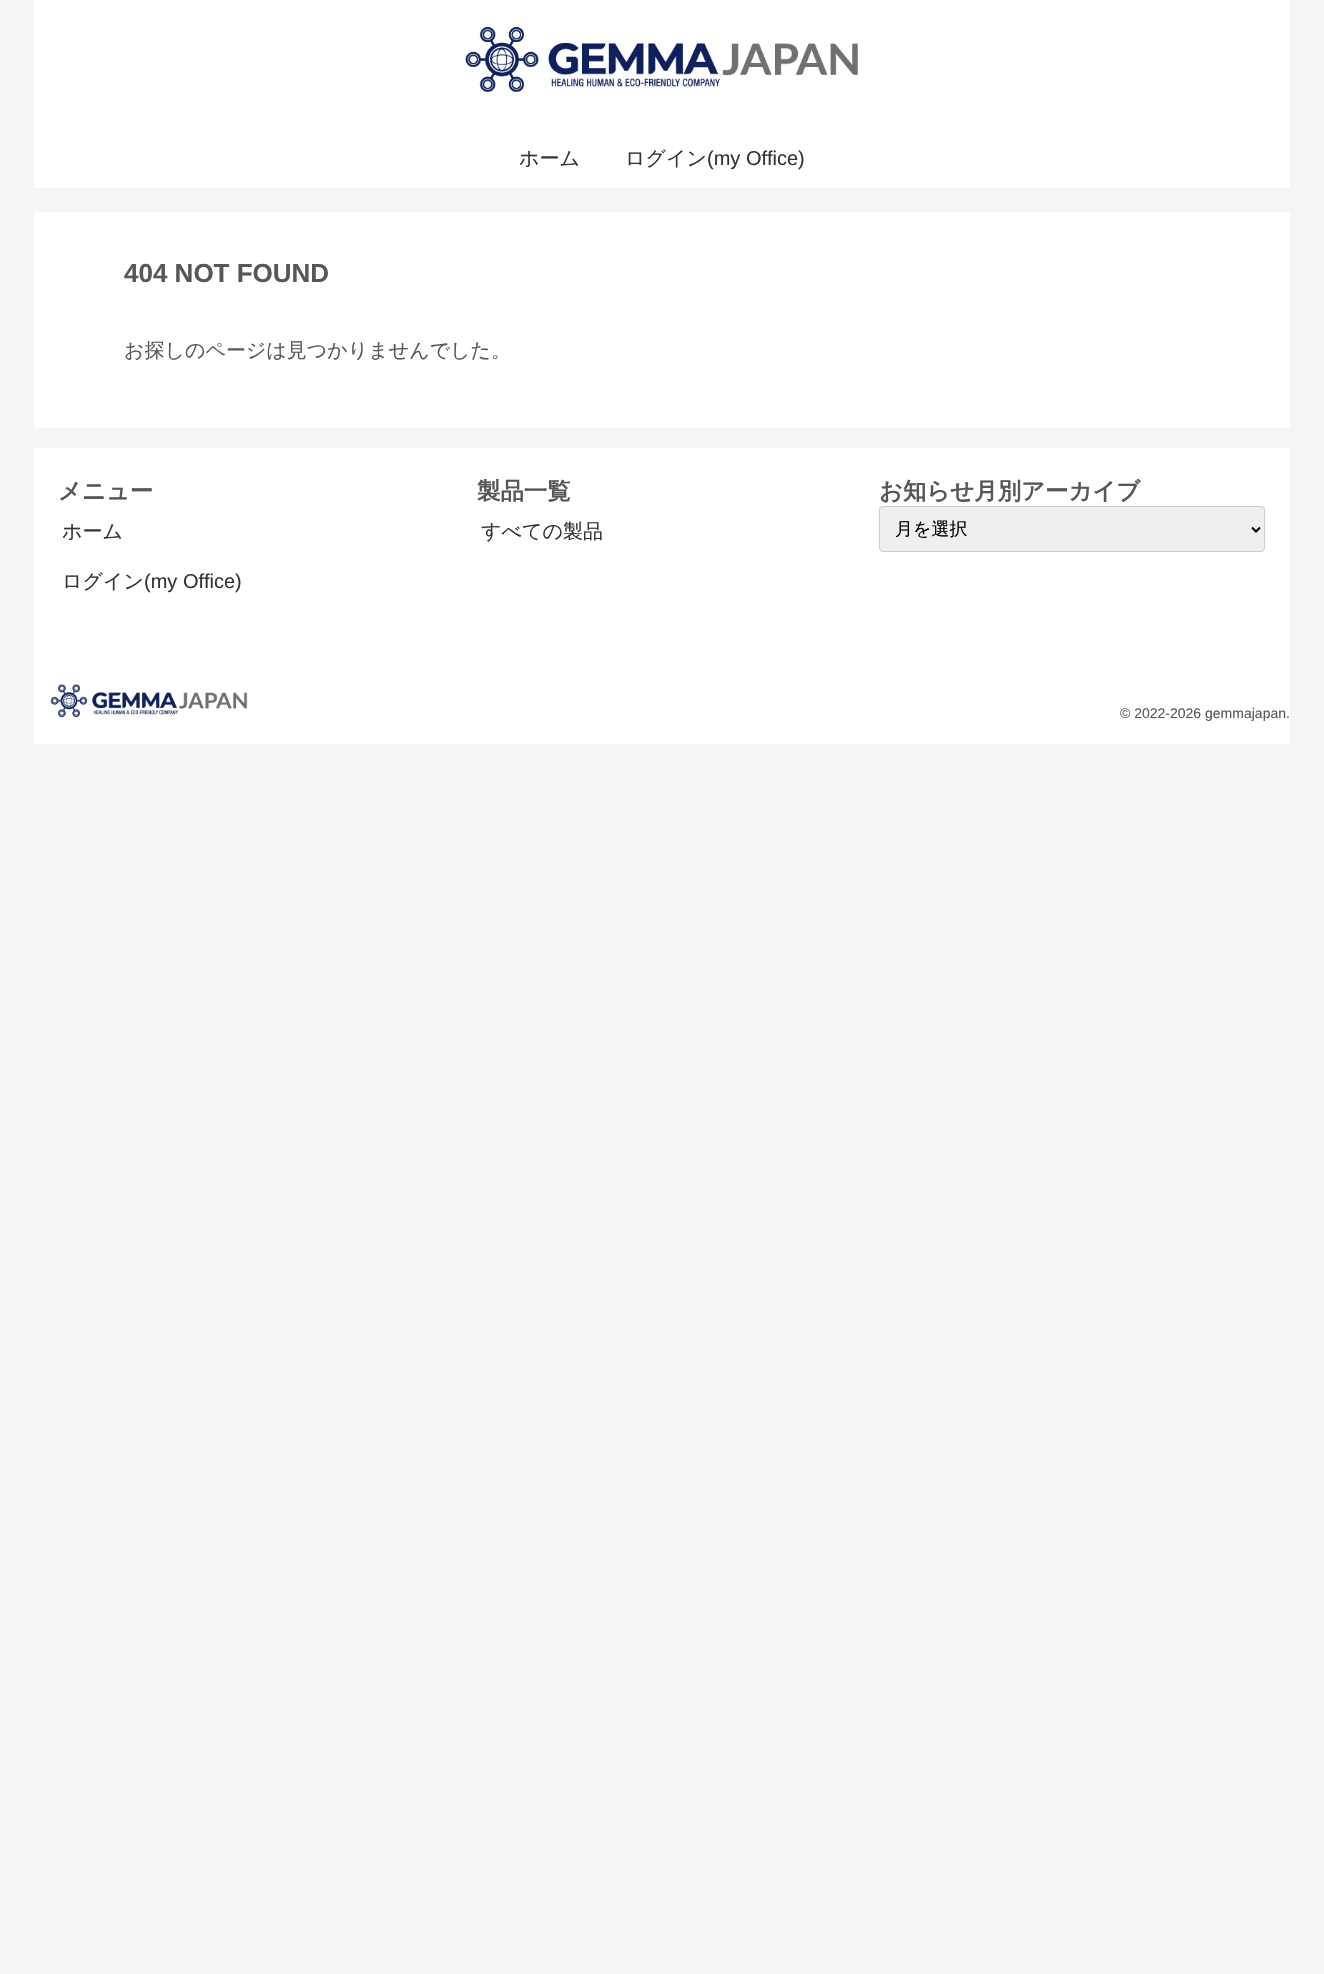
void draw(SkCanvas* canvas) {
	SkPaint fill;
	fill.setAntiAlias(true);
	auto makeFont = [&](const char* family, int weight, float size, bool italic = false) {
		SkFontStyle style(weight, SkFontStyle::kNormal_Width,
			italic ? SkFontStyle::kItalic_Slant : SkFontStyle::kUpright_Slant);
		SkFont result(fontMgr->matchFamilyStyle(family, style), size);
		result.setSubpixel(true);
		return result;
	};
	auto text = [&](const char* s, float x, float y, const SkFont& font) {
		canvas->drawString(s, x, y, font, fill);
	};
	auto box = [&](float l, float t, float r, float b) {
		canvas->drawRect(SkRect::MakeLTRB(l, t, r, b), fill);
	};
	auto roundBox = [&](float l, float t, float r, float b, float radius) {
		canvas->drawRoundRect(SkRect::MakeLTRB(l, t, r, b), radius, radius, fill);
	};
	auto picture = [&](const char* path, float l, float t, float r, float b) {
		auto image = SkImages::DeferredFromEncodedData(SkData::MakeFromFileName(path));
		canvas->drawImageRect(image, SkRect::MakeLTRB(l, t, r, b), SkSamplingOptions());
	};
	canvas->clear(0xFFF4F5F7);
	fill.setColor(0xFFFFFFFF);
	box(34, 0, 1290, 188);
	picture("image0.png", 465, 27, 858, 92);
	roundBox(34, 212, 1290, 428, 4);
	box(34, 448, 1290, 744);
	fill.setColor(0xFFEFEFEF);
	canvas->drawRoundRect(SkRect::MakeLTRB(879.5f, 506.5f, 1264.5f, 551.5f), 3.5f, 3.5f, fill);
	fill.setStyle(SkPaint::kStroke_Style);
	fill.setStrokeWidth(1);
	fill.setColor(0xFFCCCCCC);
	canvas->drawRoundRect(SkRect::MakeLTRB(879.5f, 506.5f, 1264.5f, 551.5f), 3.5f, 3.5f, fill);
	fill.setStrokeWidth(2);
	fill.setColor(0xFF000000);
	canvas->drawPath(SkPathBuilder().moveTo(1252, 527.5f).lineTo(1256, 531.5f).lineTo(1260, 527.5f).detach(), fill);
	picture("image1.png", 50, 684, 248, 718);
	auto font1 = makeFont("WenQuanYi Zen Hei", 500, 20);
	fill.setStyle(SkPaint::kFill_Style);
	fill.setColor(0xFF333333);
	text("ホーム", 519, 165, font1);
	text("ログイン", 625, 165, font1);
	auto font2 = makeFont("Liberation Sans", 400, 20);
	text("(my Office)", 707, 165, font2);
	auto font3 = makeFont("Liberation Sans", 700, 26);
	fill.setColor(0xFF575757);
	text("404 NOT FOUND", 124, 282, font3);
	text("お探しのページは見つかりませんでした。", 124, 357, font1);
	auto font4 = makeFont("WenQuanYi Zen Hei", 700, 23.4f);
	text("メニュー", 58, 499, font4);
	fill.setColor(0xFF333333);
	text("ホーム", 62, 538, font1);
	text("ログイン", 62, 588, font1);
	text("(my Office)", 144, 588, font2);
	fill.setColor(0xFF575757);
	text("製品一覧", 477, 499, font4);
	fill.setColor(0xFF333333);
	text("すべての製品", 481, 538, font1);
	fill.setColor(0xFF575757);
	text("お知らせ月別アーカイブ", 879, 499, font4);
	auto font5 = makeFont("WenQuanYi Zen Hei", 500, 18);
	fill.setColor(0xFF000000);
	text("月を選択", 895, 535, font5);
	auto font6 = makeFont("Liberation Sans", 400, 14);
	fill.setColor(0xFF575757);
	text("© 2022-2026 gemmajapan.", 1120, 718, font6);
}
